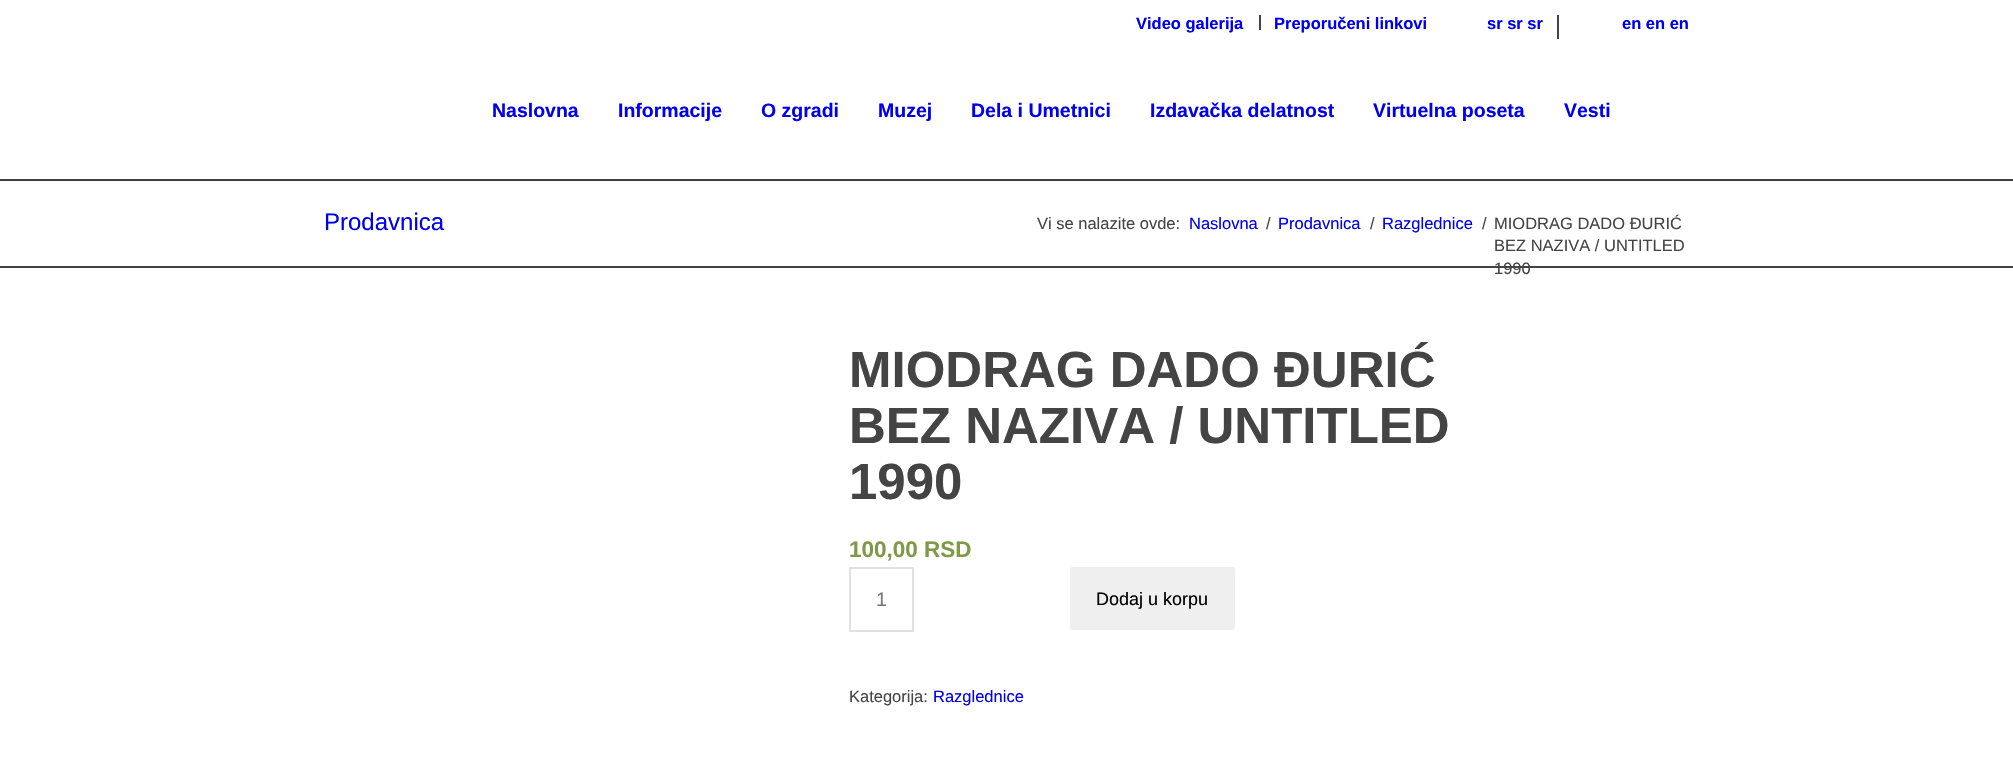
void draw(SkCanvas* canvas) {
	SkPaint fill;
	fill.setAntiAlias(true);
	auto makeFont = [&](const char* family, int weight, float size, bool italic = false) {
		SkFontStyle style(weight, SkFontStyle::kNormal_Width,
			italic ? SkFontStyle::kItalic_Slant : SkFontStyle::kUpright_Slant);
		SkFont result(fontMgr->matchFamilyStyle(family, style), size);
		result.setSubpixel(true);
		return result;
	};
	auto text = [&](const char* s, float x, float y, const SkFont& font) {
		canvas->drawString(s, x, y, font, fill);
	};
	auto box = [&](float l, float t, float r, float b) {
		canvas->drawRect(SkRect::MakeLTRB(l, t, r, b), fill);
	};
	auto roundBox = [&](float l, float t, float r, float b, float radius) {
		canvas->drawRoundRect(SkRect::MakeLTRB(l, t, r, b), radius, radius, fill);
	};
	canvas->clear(0xFFFFFFFF);
	fill.setColor(0xFF444444);
	box(0, 179, 2013, 181);
	canvas->save();
	canvas->clipPath(SkPathBuilder(SkPathFillType::kEvenOdd).moveTo(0, 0).lineTo(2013, 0).lineTo(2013, 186).lineTo(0, 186).close().moveTo(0, 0).lineTo(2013, 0).lineTo(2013, 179).lineTo(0, 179).close().detach(), true);
	fill.setColor(0x1A000000);
	fill.setMaskFilter(SkMaskFilter::MakeBlur(kNormal_SkBlurStyle, 1.5f));
	canvas->drawRect(SkRect::MakeLTRB(-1, -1, 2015, 180), fill);
	fill.setMaskFilter(nullptr);
	canvas->restore();
	fill.setColor(0xFF444444);
	box(1259, 15, 1261, 30);
	box(1557, 15, 1559, 39);
	box(0, 266, 2013, 268);
	fill.setStyle(SkPaint::kStroke_Style);
	fill.setStrokeWidth(2);
	fill.setColor(0xFFE1E1E1);
	canvas->drawRect(SkRect::MakeLTRB(850, 568, 913, 631), fill);
	fill.setStyle(SkPaint::kFill_Style);
	fill.setColor(0xFFEFEFEF);
	roundBox(1070, 567, 1235, 630, 3);
	auto font1 = makeFont("Liberation Sans", 700, 16.5f);
	fill.setColor(0xFF0000EE);
	text("Video galerija", 1136, 29, font1);
	text("Preporučeni linkovi", 1274, 29, font1);
	text("sr sr sr", 1487, 29, font1);
	text("en en en", 1622, 29, font1);
	auto font2 = makeFont("Liberation Sans", 700, 19.5f);
	text("Naslovna", 492, 117, font2);
	text("Informacije", 618, 117, font2);
	text("O zgradi", 761, 117, font2);
	text("Muzej", 878, 117, font2);
	text("Dela i Umetnici", 971, 117, font2);
	text("Izdavačka delatnost", 1150, 117, font2);
	text("Virtuelna poseta", 1373, 117, font2);
	text("Vesti", 1564, 117, font2);
	auto font3 = makeFont("Liberation Sans", 400, 24);
	text("Prodavnica", 324, 230, font3);
	auto font4 = makeFont("Liberation Sans", 400, 16.5f);
	fill.setColor(0xFF444444);
	text("Vi se nalazite ovde:", 1037, 229, font4);
	fill.setColor(0xFF0000EE);
	text("Naslovna", 1189, 229, font4);
	fill.setColor(0xFF444444);
	text("/", 1266, 229, font4);
	fill.setColor(0xFF0000EE);
	text("Prodavnica", 1278, 229, font4);
	fill.setColor(0xFF444444);
	text("/", 1370, 229, font4);
	fill.setColor(0xFF0000EE);
	text("Razglednice", 1382, 229, font4);
	fill.setColor(0xFF444444);
	text("/", 1482, 229, font4);
	text("MIODRAG DADO ĐURIĆ", 1494, 229, font4);
	text("BEZ NAZIVA / UNTITLED", 1494, 251, font4);
	text("1990", 1494, 274, font4);
	canvas->save();
	canvas->clipRect(SkRect::MakeLTRB(849, 342, 1689, 716));
	auto font5 = makeFont("Liberation Sans", 700, 51);
	text("MIODRAG DADO ĐURIĆ", 849, 387, font5);
	canvas->restore();
	text("BEZ NAZIVA / UNTITLED", 849, 443, font5);
	text("1990", 849, 499, font5);
	auto font6 = makeFont("Liberation Sans", 700, 22.5f);
	fill.setColor(0xFF7E9A47);
	text("100,00 RSD", 849, 557, font6);
	auto font7 = makeFont("Liberation Sans", 400, 19.5f);
	fill.setColor(0xFF777777);
	text("1", 876, 606, font7);
	auto font8 = makeFont("Liberation Sans", 400, 18);
	fill.setColor(0xFF000000);
	text("Dodaj u korpu", 1096, 605, font8);
	fill.setColor(0xFF444444);
	text("Kategorija:", 849, 702, font4);
	fill.setColor(0xFF0000EE);
	text("Razglednice", 933, 702, font4);
}
